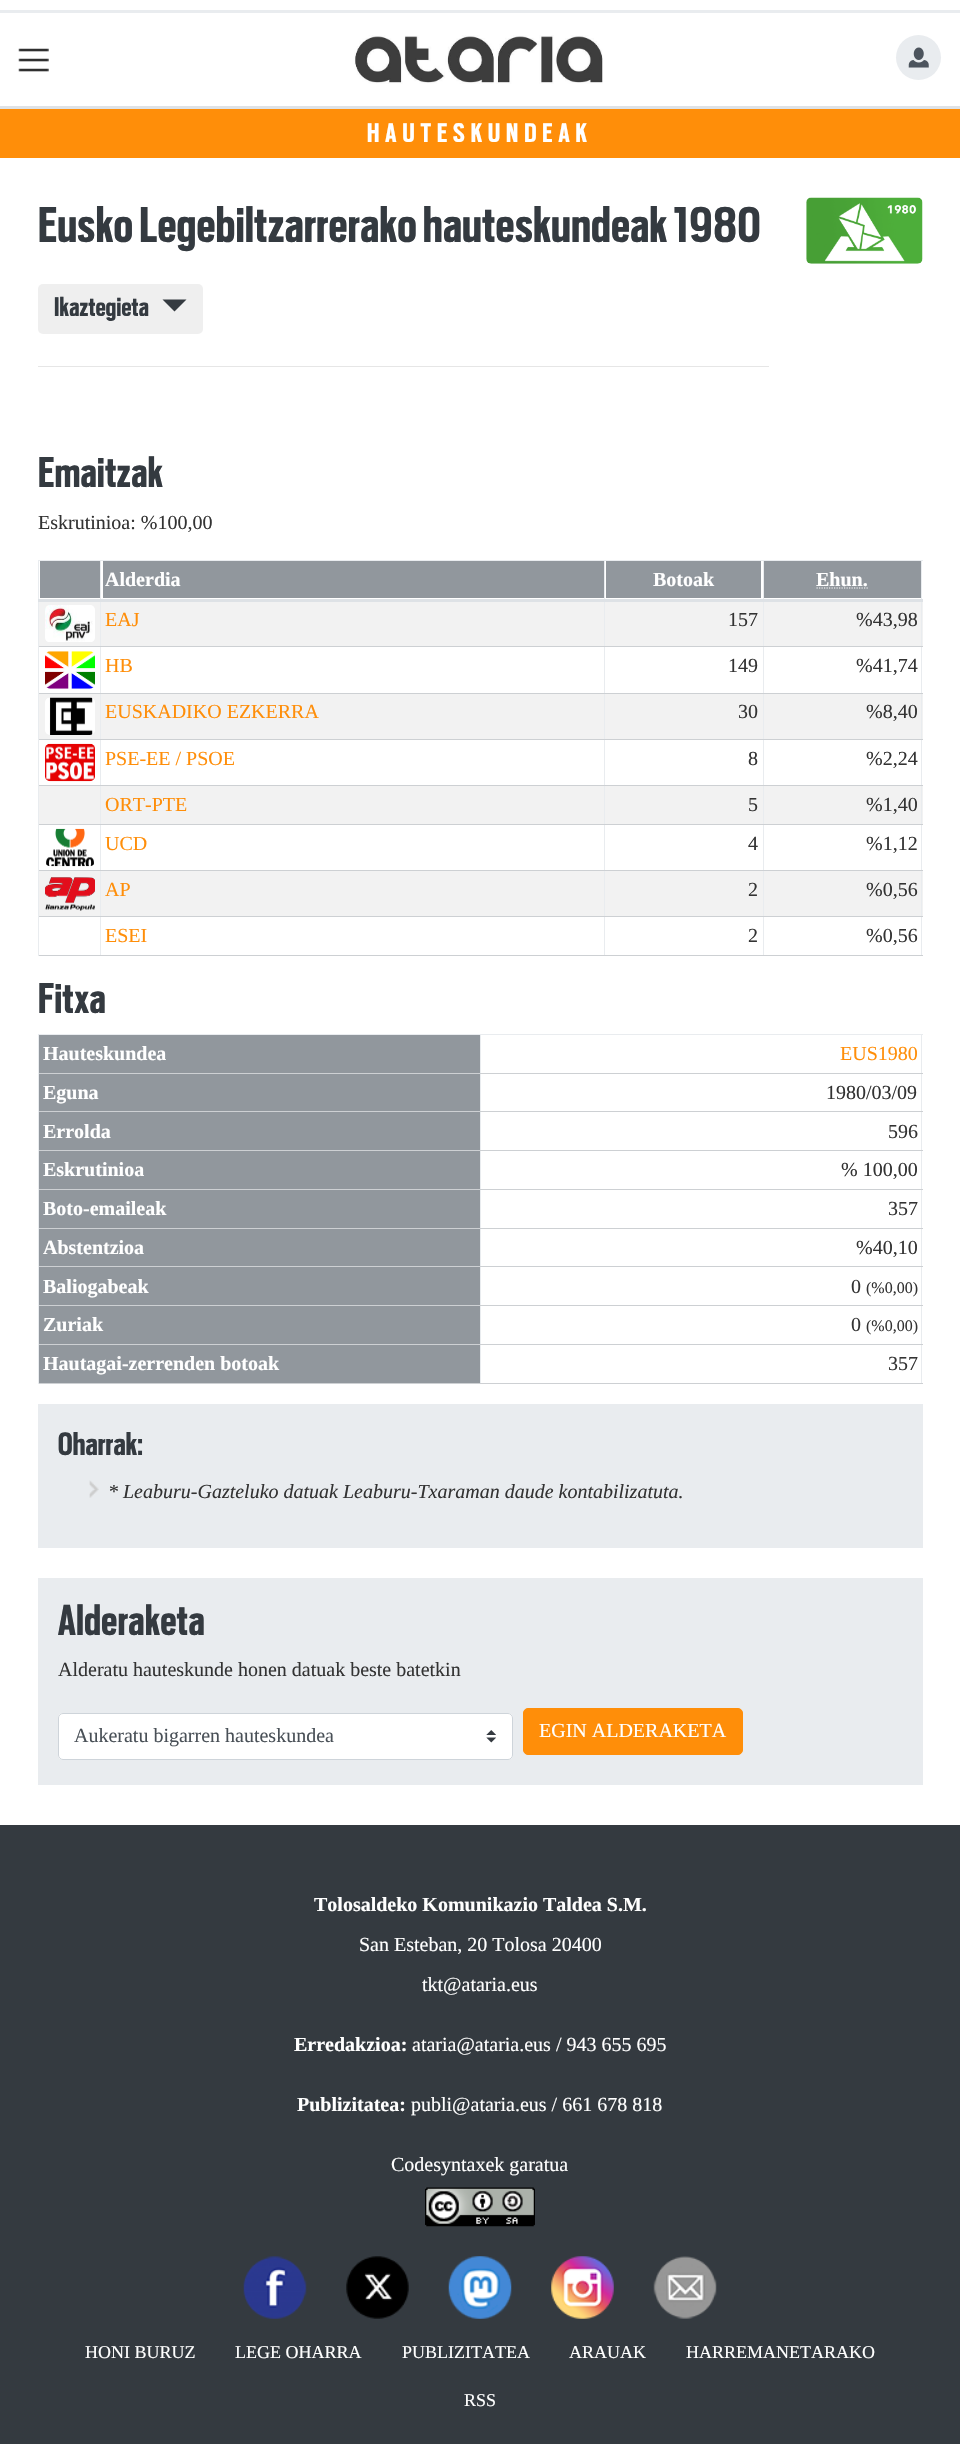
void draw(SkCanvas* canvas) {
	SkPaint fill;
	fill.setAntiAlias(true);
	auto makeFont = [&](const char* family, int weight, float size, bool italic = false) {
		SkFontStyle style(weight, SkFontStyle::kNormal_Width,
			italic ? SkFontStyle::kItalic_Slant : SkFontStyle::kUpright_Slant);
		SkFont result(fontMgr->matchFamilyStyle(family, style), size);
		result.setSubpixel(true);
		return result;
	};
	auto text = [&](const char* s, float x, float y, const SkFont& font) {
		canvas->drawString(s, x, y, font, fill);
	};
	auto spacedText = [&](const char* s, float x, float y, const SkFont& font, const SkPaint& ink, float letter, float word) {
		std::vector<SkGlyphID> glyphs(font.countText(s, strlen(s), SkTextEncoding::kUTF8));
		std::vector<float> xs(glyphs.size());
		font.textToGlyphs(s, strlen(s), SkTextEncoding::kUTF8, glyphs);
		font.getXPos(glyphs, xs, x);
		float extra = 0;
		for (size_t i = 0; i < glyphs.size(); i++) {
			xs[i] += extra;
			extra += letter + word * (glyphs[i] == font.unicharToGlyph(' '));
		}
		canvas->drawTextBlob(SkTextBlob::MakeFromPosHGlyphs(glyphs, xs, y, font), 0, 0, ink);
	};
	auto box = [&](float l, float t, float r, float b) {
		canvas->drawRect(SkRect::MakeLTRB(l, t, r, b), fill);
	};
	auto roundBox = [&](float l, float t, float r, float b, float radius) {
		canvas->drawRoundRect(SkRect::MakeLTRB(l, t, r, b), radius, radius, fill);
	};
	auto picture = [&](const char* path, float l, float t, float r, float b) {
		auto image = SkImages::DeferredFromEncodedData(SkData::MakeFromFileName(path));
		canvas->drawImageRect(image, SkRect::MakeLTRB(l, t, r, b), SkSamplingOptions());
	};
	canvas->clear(0xFFFFFFFF);
	fill.setColor(0xFFE9ECEF);
	box(0, 10, 960, 13);
	picture("image0.png", 18, 48, 49, 72);
	picture("image1.png", 354, 35, 603, 84);
	canvas->drawCircle(918.5f, 57.5f, 22.5f, fill);
	picture("image2.png", 908, 47, 929, 68);
	fill.setColor(0xFFDEE2E6);
	box(0, 106, 960, 109);
	fill.setColor(0xFFFF8E09);
	box(0, 109, 960, 158);
	fill.setColor(0xFFEFEFEF);
	roundBox(38, 284, 203, 334, 5);
	fill.setColor(0xFF343A40);
	canvas->drawPath(SkPathBuilder().moveTo(162.5f, 299.5f).lineTo(186.5f, 299.5f).lineTo(174.5f, 311.5f).close().detach(), fill);
	fill.setColor(0xFFE6E6E6);
	box(38, 366, 769, 367);
	picture("image3.png", 806, 197, 923, 264);
	fill.setColor(0xFFE9ECEF);
	box(38, 560, 923, 561);
	fill.setColor(0xFFF2F2F2);
	box(39, 602, 923, 646);
	box(39, 694, 923, 739);
	box(39, 786, 923, 824);
	box(39, 871, 923, 916);
	fill.setColor(0xFFE9ECEF);
	box(921, 560, 922, 956);
	box(38, 560, 39, 599);
	fill.setColor(0xFF91979D);
	box(40, 561, 100, 598);
	box(103, 561, 604, 598);
	box(606, 561, 761, 598);
	box(764, 561, 921, 598);
	fill.setColor(0xFFCDD0D3);
	box(763, 955, 923, 956);
	fill.setColor(0xFFE9ECEF);
	box(763, 916, 764, 956);
	fill.setColor(0xFFCDD0D3);
	box(763, 916, 923, 917);
	fill.setColor(0xFFE9ECEF);
	box(763, 870, 764, 918);
	fill.setColor(0xFFCDD0D3);
	box(763, 870, 923, 871);
	fill.setColor(0xFFE9ECEF);
	box(763, 824, 764, 871);
	fill.setColor(0xFFCDD0D3);
	box(763, 824, 923, 825);
	fill.setColor(0xFFE9ECEF);
	box(763, 785, 764, 825);
	fill.setColor(0xFFCDD0D3);
	box(763, 785, 923, 786);
	fill.setColor(0xFFE9ECEF);
	box(763, 739, 764, 786);
	fill.setColor(0xFFCDD0D3);
	box(763, 739, 923, 740);
	fill.setColor(0xFFE9ECEF);
	box(763, 693, 764, 740);
	fill.setColor(0xFFCDD0D3);
	box(763, 693, 923, 694);
	fill.setColor(0xFFE9ECEF);
	box(763, 646, 764, 694);
	fill.setColor(0xFFCDD0D3);
	box(763, 646, 923, 647);
	fill.setColor(0xFFE9ECEF);
	box(763, 560, 764, 648);
	fill.setColor(0xFFCDD0D3);
	box(604, 955, 764, 956);
	fill.setColor(0xFFE9ECEF);
	box(604, 916, 605, 956);
	fill.setColor(0xFFCDD0D3);
	box(604, 916, 764, 917);
	fill.setColor(0xFFE9ECEF);
	box(604, 870, 605, 918);
	fill.setColor(0xFFCDD0D3);
	box(604, 870, 764, 871);
	fill.setColor(0xFFE9ECEF);
	box(604, 824, 605, 871);
	fill.setColor(0xFFCDD0D3);
	box(604, 824, 764, 825);
	fill.setColor(0xFFE9ECEF);
	box(604, 785, 605, 825);
	fill.setColor(0xFFCDD0D3);
	box(604, 785, 764, 786);
	fill.setColor(0xFFE9ECEF);
	box(604, 739, 605, 786);
	fill.setColor(0xFFCDD0D3);
	box(604, 739, 764, 740);
	fill.setColor(0xFFE9ECEF);
	box(604, 693, 605, 740);
	fill.setColor(0xFFCDD0D3);
	box(604, 693, 764, 694);
	fill.setColor(0xFFE9ECEF);
	box(604, 646, 605, 694);
	fill.setColor(0xFFCDD0D3);
	box(604, 646, 764, 647);
	fill.setColor(0xFFE9ECEF);
	box(604, 560, 605, 648);
	fill.setColor(0xFFCDD0D3);
	box(100, 955, 605, 956);
	fill.setColor(0xFFE9ECEF);
	box(100, 916, 101, 956);
	fill.setColor(0xFFCDD0D3);
	box(100, 916, 605, 917);
	fill.setColor(0xFFE9ECEF);
	box(100, 870, 101, 918);
	fill.setColor(0xFFCDD0D3);
	box(100, 870, 605, 871);
	fill.setColor(0xFFE9ECEF);
	box(100, 824, 101, 871);
	fill.setColor(0xFFCDD0D3);
	box(100, 824, 605, 825);
	fill.setColor(0xFFE9ECEF);
	box(100, 785, 101, 825);
	fill.setColor(0xFFCDD0D3);
	box(100, 785, 605, 786);
	fill.setColor(0xFFE9ECEF);
	box(100, 739, 101, 786);
	fill.setColor(0xFFCDD0D3);
	box(100, 739, 605, 740);
	fill.setColor(0xFFE9ECEF);
	box(100, 693, 101, 740);
	fill.setColor(0xFFCDD0D3);
	box(100, 693, 605, 694);
	fill.setColor(0xFFE9ECEF);
	box(100, 646, 101, 694);
	fill.setColor(0xFFCDD0D3);
	box(100, 646, 605, 647);
	fill.setColor(0xFFE9ECEF);
	box(100, 560, 101, 648);
	fill.setColor(0xFFCDD0D3);
	box(38, 955, 101, 956);
	fill.setColor(0xFFE9ECEF);
	box(38, 916, 39, 956);
	fill.setColor(0xFFCDD0D3);
	box(38, 916, 101, 917);
	fill.setColor(0xFFE9ECEF);
	box(38, 870, 39, 918);
	fill.setColor(0xFFCDD0D3);
	box(38, 870, 101, 871);
	fill.setColor(0xFFE9ECEF);
	box(38, 824, 39, 871);
	fill.setColor(0xFFCDD0D3);
	box(38, 824, 101, 825);
	fill.setColor(0xFFE9ECEF);
	box(38, 785, 39, 825);
	fill.setColor(0xFFCDD0D3);
	box(38, 785, 101, 786);
	fill.setColor(0xFFE9ECEF);
	box(38, 739, 39, 786);
	fill.setColor(0xFFCDD0D3);
	box(38, 739, 101, 740);
	fill.setColor(0xFFE9ECEF);
	box(38, 693, 39, 740);
	fill.setColor(0xFFCDD0D3);
	box(38, 693, 101, 694);
	fill.setColor(0xFFE9ECEF);
	box(38, 646, 39, 694);
	fill.setColor(0xFFCDD0D3);
	box(38, 646, 101, 647);
	fill.setColor(0xFFE9ECEF);
	box(38, 599, 39, 648);
	fill.setColor(0xFFDEE2E6);
	box(38, 599, 923, 602);
	fill.setStyle(SkPaint::kStroke_Style);
	fill.setStrokeWidth(1.2f);
	fill.setColor(0xFFFFFFFF);
	fill.setPathEffect(SkDashPathEffect::Make({{1.25f, 1.25f}}, 0));
	canvas->drawPath(SkPathBuilder().moveTo(816.5f, 588).lineTo(868, 588).detach(), fill);
	fill.setPathEffect(nullptr);
	picture("image4.png", 45, 605, 95, 642);
	picture("image5.png", 45, 651, 95, 689);
	picture("image6.png", 45, 697, 95, 735);
	picture("image7.png", 45, 743, 95, 782);
	picture("image8.png", 46, 828, 94, 867);
	picture("image9.png", 45, 877, 95, 911);
	fill.setStyle(SkPaint::kFill_Style);
	fill.setColor(0xFFE9ECEF);
	box(38, 1034, 923, 1035);
	box(921, 1034, 922, 1384);
	fill.setColor(0xFF91979D);
	box(39, 1035, 480, 1073);
	fill.setColor(0xFFCDD0D3);
	box(480, 1383, 923, 1384);
	fill.setColor(0xFFE9ECEF);
	box(480, 1344, 481, 1384);
	fill.setColor(0xFFCDD0D3);
	box(480, 1344, 923, 1345);
	fill.setColor(0xFFE9ECEF);
	box(480, 1305, 481, 1345);
	fill.setColor(0xFFCDD0D3);
	box(480, 1305, 923, 1306);
	fill.setColor(0xFFE9ECEF);
	box(480, 1266, 481, 1306);
	fill.setColor(0xFFCDD0D3);
	box(480, 1266, 923, 1267);
	fill.setColor(0xFFE9ECEF);
	box(480, 1228, 481, 1268);
	fill.setColor(0xFFCDD0D3);
	box(480, 1228, 923, 1229);
	fill.setColor(0xFFE9ECEF);
	box(480, 1189, 481, 1229);
	fill.setColor(0xFFCDD0D3);
	box(480, 1189, 923, 1190);
	fill.setColor(0xFFE9ECEF);
	box(480, 1150, 481, 1190);
	fill.setColor(0xFFCDD0D3);
	box(480, 1150, 923, 1151);
	fill.setColor(0xFFE9ECEF);
	box(480, 1111, 481, 1151);
	fill.setColor(0xFFCDD0D3);
	box(480, 1111, 923, 1112);
	fill.setColor(0xFFE9ECEF);
	box(480, 1073, 481, 1113);
	fill.setColor(0xFFCDD0D3);
	box(480, 1073, 923, 1074);
	fill.setColor(0xFFE9ECEF);
	box(480, 1034, 481, 1074);
	fill.setColor(0xFF91979D);
	box(39, 1074, 480, 1150);
	box(39, 1229, 480, 1305);
	fill.setColor(0xFFCDD0D3);
	box(38, 1383, 481, 1384);
	fill.setColor(0xFFE9ECEF);
	box(38, 1344, 39, 1384);
	fill.setColor(0xFFCDD0D3);
	box(38, 1344, 481, 1345);
	fill.setColor(0xFFE9ECEF);
	box(38, 1305, 39, 1345);
	fill.setColor(0xFFCDD0D3);
	box(38, 1305, 481, 1306);
	fill.setColor(0xFFE9ECEF);
	box(38, 1266, 39, 1306);
	fill.setColor(0xFFCDD0D3);
	box(38, 1266, 481, 1267);
	fill.setColor(0xFFE9ECEF);
	box(38, 1228, 39, 1268);
	fill.setColor(0xFFCDD0D3);
	box(38, 1228, 481, 1229);
	fill.setColor(0xFFE9ECEF);
	box(38, 1189, 39, 1229);
	fill.setColor(0xFFCDD0D3);
	box(38, 1189, 481, 1190);
	fill.setColor(0xFFE9ECEF);
	box(38, 1150, 39, 1190);
	fill.setColor(0xFFCDD0D3);
	box(38, 1150, 481, 1151);
	fill.setColor(0xFFE9ECEF);
	box(38, 1111, 39, 1151);
	fill.setColor(0xFFCDD0D3);
	box(38, 1111, 481, 1112);
	fill.setColor(0xFFE9ECEF);
	box(38, 1073, 39, 1113);
	fill.setColor(0xFFCDD0D3);
	box(38, 1073, 481, 1074);
	fill.setColor(0xFFE9ECEF);
	box(38, 1034, 39, 1074);
	fill.setColor(0xFF91979D);
	box(39, 1151, 480, 1189);
	box(39, 1190, 480, 1228);
	box(39, 1306, 480, 1344);
	box(39, 1345, 480, 1383);
	fill.setColor(0xFFE9ECEF);
	box(38, 1404, 923, 1548);
	picture("image10.png", 89, 1480, 99, 1498);
	box(38, 1578, 923, 1785);
	fill.setColor(0xFFFFFFFF);
	roundBox(58, 1713, 513, 1760, 5);
	picture("image11.png", 486, 1730, 496, 1743);
	fill.setStyle(SkPaint::kStroke_Style);
	fill.setStrokeWidth(1);
	fill.setColor(0xFFCED4DA);
	canvas->drawRoundRect(SkRect::MakeLTRB(58.5f, 1713.5f, 512.5f, 1759.5f), 4.5f, 4.5f, fill);
	fill.setStyle(SkPaint::kFill_Style);
	fill.setColor(0xFFFF8E09);
	canvas->drawRoundRect(SkRect::MakeLTRB(523.5f, 1708.5f, 742.5f, 1754.5f), 4.5f, 4.5f, fill);
	fill.setStyle(SkPaint::kStroke_Style);
	canvas->drawRoundRect(SkRect::MakeLTRB(523.5f, 1708.5f, 742.5f, 1754.5f), 4.5f, 4.5f, fill);
	fill.setStyle(SkPaint::kFill_Style);
	fill.setColor(0xFF343A40);
	box(0, 1825, 960, 2444);
	picture("image12.png", 425, 2187, 535, 2227);
	picture("image13.png", 243, 2256, 307, 2319);
	picture("image14.png", 346, 2256, 409, 2319);
	picture("image15.png", 448, 2256, 512, 2319);
	picture("image16.png", 551, 2256, 614, 2319);
	picture("image17.png", 653, 2256, 717, 2319);
	auto font1 = makeFont("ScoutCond", 700, 30);
	fill.setColor(0xFFFFFFFF);
	spacedText("HAUTESKUNDEAK", 367, 142, font1, fill, 6, 0);
	auto font2 = makeFont("ScoutCond", 700, 56);
	fill.setColor(0xFF343A40);
	spacedText("Eusko Legebiltzarrerako hauteskundeak 1980", 38, 242, font2, fill, 0.55f, 0);
	spacedText("Ikaztegieta", 54, 316, font1, fill, 0.25f, 0);
	auto font3 = makeFont("ScoutCond", 700, 48);
	spacedText("Emaitzak", 38, 487, font3, fill, 0.5f, 0);
	auto font4 = makeFont("Liberation Serif", 400, 20);
	fill.setColor(0xFF333333);
	text("Eskrutinioa: %100,00", 38, 529, font4);
	auto font5 = makeFont("Liberation Serif", 700, 20);
	fill.setColor(0xFFFFFFFF);
	text("Alderdia", 105, 586, font5);
	text("Botoak", 653, 586, font5);
	text("Ehun.", 816, 586, font5);
	fill.setColor(0xFFFF8E09);
	text("EAJ", 105, 626, font4);
	fill.setColor(0xFF333333);
	text("157", 728, 626, font4);
	text("%43,98", 856, 626, font4);
	fill.setColor(0xFFFF8E09);
	text("HB", 105, 672, font4);
	fill.setColor(0xFF333333);
	text("149", 728, 672, font4);
	text("%41,74", 856, 672, font4);
	fill.setColor(0xFFFF8E09);
	text("EUSKADIKO EZKERRA", 105, 718, font4);
	fill.setColor(0xFF333333);
	text("30", 738, 718, font4);
	text("%8,40", 866, 718, font4);
	fill.setColor(0xFFFF8E09);
	text("PSE-EE / PSOE", 105, 765, font4);
	fill.setColor(0xFF333333);
	text("8", 748, 765, font4);
	text("%2,24", 866, 765, font4);
	fill.setColor(0xFFFF8E09);
	text("ORT-PTE", 105, 811, font4);
	fill.setColor(0xFF333333);
	text("5", 748, 811, font4);
	text("%1,40", 866, 811, font4);
	fill.setColor(0xFFFF8E09);
	text("UCD", 105, 850, font4);
	fill.setColor(0xFF333333);
	text("4", 748, 850, font4);
	text("%1,12", 866, 850, font4);
	fill.setColor(0xFFFF8E09);
	text("AP", 105, 896, font4);
	fill.setColor(0xFF333333);
	text("2", 748, 896, font4);
	text("%0,56", 866, 896, font4);
	fill.setColor(0xFFFF8E09);
	text("ESEI", 105, 942, font4);
	fill.setColor(0xFF333333);
	text("2", 748, 942, font4);
	text("%0,56", 866, 942, font4);
	fill.setColor(0xFF343A40);
	spacedText("Fitxa", 38, 1013, font3, fill, 0.5f, 0);
	fill.setColor(0xFFFFFFFF);
	text("Hauteskundea", 43, 1060, font5);
	fill.setColor(0xFFFF8E09);
	text("EUS1980", 840, 1060, font4);
	fill.setColor(0xFFFFFFFF);
	text("Eguna", 43, 1099, font5);
	fill.setColor(0xFF333333);
	text("1980/03/09", 826, 1099, font4);
	fill.setColor(0xFFFFFFFF);
	text("Errolda", 43, 1138, font5);
	fill.setColor(0xFF333333);
	text("596", 888, 1138, font4);
	fill.setColor(0xFFFFFFFF);
	text("Eskrutinioa", 43, 1176, font5);
	fill.setColor(0xFF333333);
	text("% 100,00", 841, 1176, font4);
	fill.setColor(0xFFFFFFFF);
	text("Boto-emaileak", 43, 1215, font5);
	fill.setColor(0xFF333333);
	text("357", 888, 1215, font4);
	fill.setColor(0xFFFFFFFF);
	text("Abstentzioa", 43, 1254, font5);
	fill.setColor(0xFF333333);
	text("%40,10", 856, 1254, font4);
	fill.setColor(0xFFFFFFFF);
	text("Baliogabeak", 43, 1293, font5);
	fill.setColor(0xFF333333);
	text("0", 851, 1293, font4);
	auto font6 = makeFont("Liberation Serif", 400, 16);
	text("(%0,00)", 866, 1293, font6);
	fill.setColor(0xFFFFFFFF);
	text("Zuriak", 43, 1331, font5);
	fill.setColor(0xFF333333);
	text("0", 851, 1331, font4);
	text("(%0,00)", 866, 1331, font6);
	fill.setColor(0xFFFFFFFF);
	text("Hautagai-zerrenden botoak", 43, 1370, font5);
	fill.setColor(0xFF333333);
	text("357", 888, 1370, font4);
	auto font7 = makeFont("ScoutCond", 700, 36);
	fill.setColor(0xFF343A40);
	spacedText("Oharrak:", 58, 1455, font7, fill, 0.25f, 0);
	auto font8 = makeFont("Liberation Serif", 400, 20, true);
	fill.setColor(0xFF333333);
	text("* Leaburu-Gazteluko datuak Leaburu-Txaraman daude kontabilizatuta.", 108, 1498, font8);
	fill.setColor(0xFF343A40);
	spacedText("Alderaketa", 58, 1635, font3, fill, 0.5f, 0);
	fill.setColor(0xFF333333);
	text("Alderatu hauteskunde honen datuak beste batetkin", 58, 1676, font4);
	fill.setColor(0xFF495057);
	text("Aukeratu bigarren hauteskundea", 74, 1742, font4);
	fill.setColor(0xFFFFFFFF);
	text("EGIN ALDERAKETA", 539, 1737, font4);
	text("Tolosaldeko Komunikazio Taldea S.M.", 314, 1911, font5);
	text("San Esteban, 20 Tolosa 20400", 359, 1951, font4);
	text("tkt@ataria.eus", 422, 1991, font4);
	text("Erredakzioa:", 294, 2051, font5);
	text("ataria@ataria.eus / 943 655 695", 412, 2051, font4);
	text("Publizitatea:", 297, 2111, font5);
	text("publi@ataria.eus / 661 678 818", 411, 2111, font4);
	text("Codesyntaxek garatua", 391, 2171, font4);
	auto font9 = makeFont("Liberation Serif", 400, 18);
	text("HONI BURUZ", 85, 2358, font9);
	text("LEGE OHARRA", 235, 2358, font9);
	text("PUBLIZITATEA", 402, 2358, font9);
	text("ARAUAK", 569, 2358, font9);
	text("HARREMANETARAKO", 686, 2358, font9);
	text("RSS", 464, 2406, font9);
}
